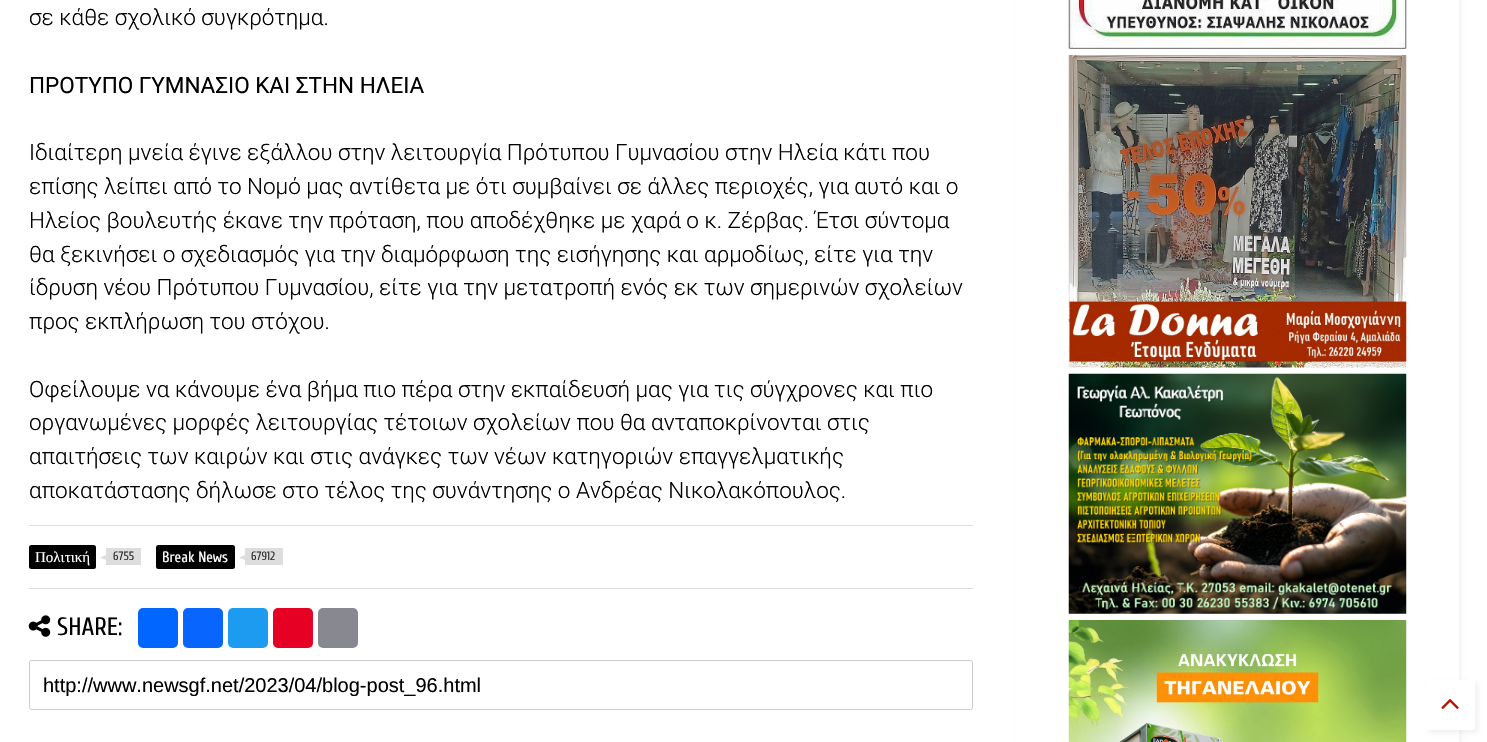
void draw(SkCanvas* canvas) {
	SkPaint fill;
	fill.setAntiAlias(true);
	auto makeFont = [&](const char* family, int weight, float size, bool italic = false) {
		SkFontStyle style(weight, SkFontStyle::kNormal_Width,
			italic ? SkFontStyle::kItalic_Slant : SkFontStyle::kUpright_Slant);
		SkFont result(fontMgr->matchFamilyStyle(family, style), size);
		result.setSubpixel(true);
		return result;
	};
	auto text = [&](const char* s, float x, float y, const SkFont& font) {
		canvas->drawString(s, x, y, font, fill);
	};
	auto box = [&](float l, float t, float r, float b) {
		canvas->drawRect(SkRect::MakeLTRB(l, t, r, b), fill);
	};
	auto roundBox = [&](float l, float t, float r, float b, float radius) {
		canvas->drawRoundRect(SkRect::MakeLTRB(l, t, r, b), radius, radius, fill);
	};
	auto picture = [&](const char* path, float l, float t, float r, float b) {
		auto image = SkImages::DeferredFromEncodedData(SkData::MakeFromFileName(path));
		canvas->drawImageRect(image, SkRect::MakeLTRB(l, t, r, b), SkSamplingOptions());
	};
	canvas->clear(0xFFFFFFFF);
	fill.setColor(0xFFDDDDDD);
	box(29, 525, 973, 526);
	fill.setColor(0xFF000000);
	roundBox(29, 545, 96, 569, 2.5f);
	fill.setColor(0xFFDDDDDD);
	box(106, 548, 141, 565);
	canvas->drawPath(SkPathBuilder().moveTo(109, 554).lineTo(109, 561).lineTo(100, 557.5f).close().detach(), fill);
	fill.setColor(0xFF000000);
	roundBox(156, 545, 235, 569, 2.5f);
	fill.setColor(0xFFDDDDDD);
	box(245, 548, 283, 565);
	canvas->drawPath(SkPathBuilder().moveTo(247.5f, 554).lineTo(247.5f, 561).lineTo(239, 557.5f).close().detach(), fill);
	box(29, 588, 973, 589);
	picture("image0.png", 28, 615, 51, 637);
	fill.setColor(0xFF0166FF);
	roundBox(138, 608, 178, 648, 5);
	fill.setColor(0xFF0866FF);
	roundBox(183, 608, 223, 648, 5);
	fill.setColor(0xFF1D9BF0);
	roundBox(228, 608, 268, 648, 5);
	fill.setColor(0xFFE60023);
	roundBox(273, 608, 313, 648, 5);
	fill.setColor(0xFF888990);
	roundBox(318, 608, 358, 648, 5);
	fill.setStyle(SkPaint::kStroke_Style);
	fill.setStrokeWidth(1);
	fill.setColor(0xFFCCCCCC);
	canvas->drawRoundRect(SkRect::MakeLTRB(29.5f, 660.5f, 972.5f, 709.5f), 2, 2, fill);
	fill.setStyle(SkPaint::kFill_Style);
	fill.setColor(0x0D000000);
	fill.setMaskFilter(SkMaskFilter::MakeBlur(kNormal_SkBlurStyle, 2));
	canvas->drawRect(SkRect::MakeLTRB(1018, -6, 1461, 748), fill);
	fill.setMaskFilter(nullptr);
	fill.setColor(0xFFFFFFFF);
	box(1016, 0, 1459, 742);
	picture("image1.png", 1068, 0, 1407, 49);
	picture("image2.png", 1068, 55, 1407, 368);
	picture("image3.png", 1068, 373, 1407, 614);
	picture("image4.png", 1068, 620, 1407, 742);
	fill.setColor(0x0D000000);
	fill.setMaskFilter(SkMaskFilter::MakeBlur(kNormal_SkBlurStyle, 2));
	canvas->drawRoundRect(SkRect::MakeLTRB(1428, 683, 1478, 733), 2.5f, 2.5f, fill);
	fill.setMaskFilter(nullptr);
	fill.setColor(0xFFFFFFFF);
	roundBox(1425, 680, 1475, 730, 2.5f);
	picture("image5.png", 1441, 699, 1459, 709);
	auto font1 = makeFont("Roboto", 300, 22.5f);
	fill.setColor(0xFF000000);
	text("σε κάθε σχολικό συγκρότημα.", 29, 25, font1);
	auto font2 = makeFont("Roboto", 400, 22.5f);
	text("ΠΡΟΤΥΠΟ ΓΥΜΝΑΣΙΟ ΚΑΙ ΣΤΗΝ ΗΛΕΙΑ", 29, 93, font2);
	text("Ιδιαίτερη μνεία έγινε εξάλλου στην λειτουργία Πρότυπου Γυμνασίου στην Ηλεία κάτι που", 29, 160, font1);
	text("επίσης λείπει από το Νομό μας αντίθετα με ότι συμβαίνει σε άλλες περιοχές, για αυτό και ο", 29, 194, font1);
	text("Ηλείος βουλευτής έκανε την πρόταση, που αποδέχθηκε με χαρά ο κ. Ζέρβας. Έτσι σύντομα", 29, 228, font1);
	text("θα ξεκινήσει ο σχεδιασμός για την διαμόρφωση της εισήγησης και αρμοδίως, είτε για την", 29, 262, font1);
	text("ίδρυση νέου Πρότυπου Γυμνασίου, είτε για την μετατροπή ενός εκ των σημερινών σχολείων", 29, 295, font1);
	text("προς εκπλήρωση του στόχου.", 29, 329, font1);
	text("Οφείλουμε να κάνουμε ένα βήμα πιο πέρα στην εκπαίδευσή μας για τις σύγχρονες και πιο", 29, 397, font1);
	text("οργανωμένες μορφές λειτουργίας τέτοιων σχολείων που θα ανταποκρίνονται στις", 29, 430, font1);
	text("απαιτήσεις των καιρών και στις ανάγκες των νέων κατηγοριών επαγγελματικής", 29, 464, font1);
	text("αποκατάστασης δήλωσε στο τέλος της συνάντησης ο Ανδρέας Νικολακόπουλος.", 29, 498, font1);
	auto font3 = makeFont("Liberation Serif", 400, 15);
	fill.setColor(0xFFFFFFFF);
	text("Πολιτική", 35, 562, font3);
	auto font4 = makeFont("Cuprum", 400, 12);
	fill.setColor(0xFF333333);
	text("6755", 113, 560, font4);
	auto font5 = makeFont("Cuprum", 400, 15);
	fill.setColor(0xFFFFFFFF);
	text("Break News", 162, 562, font5);
	fill.setColor(0xFF333333);
	text("67912", 251, 560, font4);
	auto font6 = makeFont("Cuprum", 400, 25);
	fill.setColor(0xFF000000);
	text("SHARE:", 57, 635, font6);
	canvas->save();
	canvas->clipRect(SkRect::MakeLTRB(43, 674, 959, 696));
	auto font7 = makeFont("Liberation Sans", 400, 20);
	text("http://www.newsgf.net/2023/04/blog-post_96.html", 43, 692, font7);
	canvas->restore();
}
